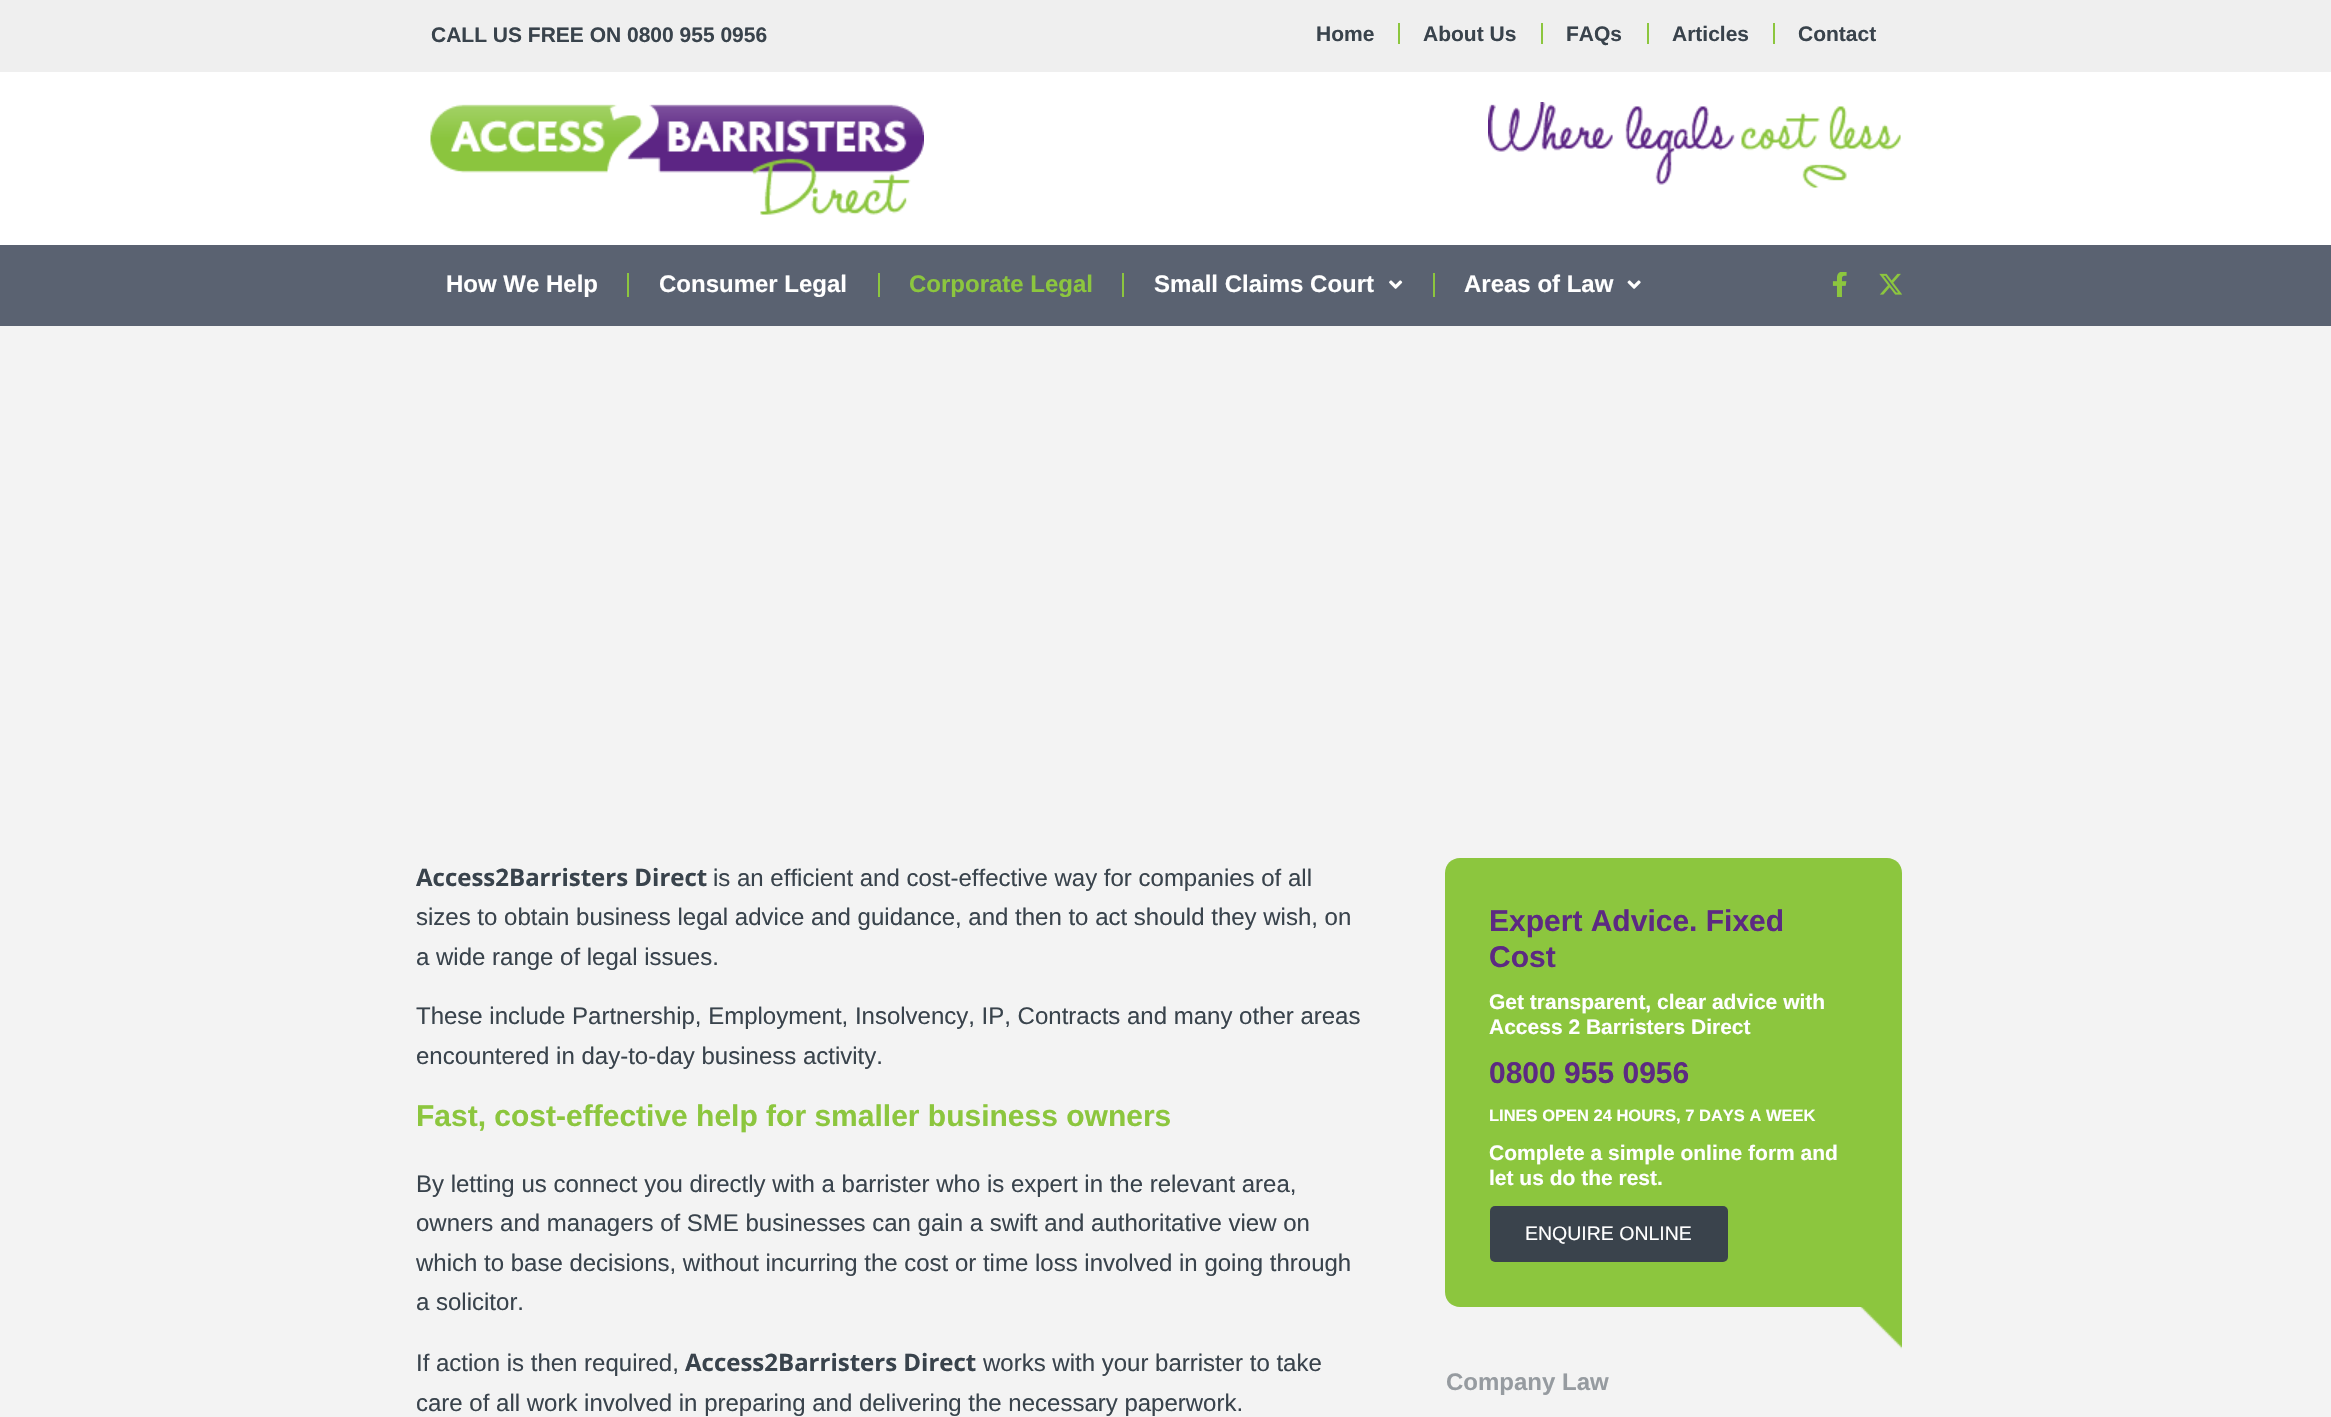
void draw(SkCanvas* canvas) {
	SkPaint fill;
	fill.setAntiAlias(true);
	auto makeFont = [&](const char* family, int weight, float size, bool italic = false) {
		SkFontStyle style(weight, SkFontStyle::kNormal_Width,
			italic ? SkFontStyle::kItalic_Slant : SkFontStyle::kUpright_Slant);
		SkFont result(fontMgr->matchFamilyStyle(family, style), size);
		result.setSubpixel(true);
		return result;
	};
	auto text = [&](const char* s, float x, float y, const SkFont& font) {
		canvas->drawString(s, x, y, font, fill);
	};
	auto box = [&](float l, float t, float r, float b) {
		canvas->drawRect(SkRect::MakeLTRB(l, t, r, b), fill);
	};
	auto roundBox = [&](float l, float t, float r, float b, float radius) {
		canvas->drawRoundRect(SkRect::MakeLTRB(l, t, r, b), radius, radius, fill);
	};
	auto picture = [&](const char* path, float l, float t, float r, float b) {
		auto image = SkImages::DeferredFromEncodedData(SkData::MakeFromFileName(path));
		canvas->drawImageRect(image, SkRect::MakeLTRB(l, t, r, b), SkSamplingOptions());
	};
	canvas->clear(0xFFF3F3F3);
	fill.setColor(0xFFEFEFEF);
	box(0, 0, 2331, 72);
	fill.setColor(0xFF8CC63E);
	box(1398, 23, 1400, 44);
	box(1541, 23, 1543, 44);
	box(1647, 23, 1649, 44);
	box(1773, 23, 1775, 44);
	fill.setColor(0xFFFFFFFF);
	box(0, 72, 2331, 245);
	picture("image0.png", 430, 104, 924, 215);
	picture("image1.png", 1488, 102, 1901, 188);
	fill.setColor(0xFF5A6271);
	box(0, 245, 2331, 326);
	fill.setColor(0xFF8CC63E);
	box(627, 273, 629, 297);
	box(878, 273, 880, 297);
	box(1122, 273, 1124, 297);
	box(1433, 273, 1435, 297);
	picture("image2.png", 1389, 280, 1403, 289);
	picture("image3.png", 1627, 280, 1641, 289);
	picture("image4.png", 1832, 272, 1847, 297);
	picture("image5.png", 1879, 273, 1902, 295);
	canvas->drawPath(SkPathBuilder().moveTo(1460, 858).lineTo(1887, 858).cubicTo(1895.5f, 858, 1902, 864.5f, 1902, 873).lineTo(1902, 1307).lineTo(1460, 1307).cubicTo(1451.5f, 1307, 1445, 1300.5f, 1445, 1292).lineTo(1445, 873).cubicTo(1445, 864.5f, 1451.5f, 858, 1460, 858).close().detach(), fill);
	fill.setColor(0xFF3A434C);
	roundBox(1490, 1206, 1728, 1262, 5);
	picture("image6.png", 1860, 1307, 1902, 1349);
	auto font1 = makeFont("Liberation Sans", 700, 21);
	fill.setColor(0xFF39434C);
	text("CALL US FREE ON 0800 955 0956", 431, 42, font1);
	text("Home", 1316, 41, font1);
	text("About Us", 1423, 41, font1);
	text("FAQs", 1566, 41, font1);
	text("Articles", 1672, 41, font1);
	text("Contact", 1798, 41, font1);
	auto font2 = makeFont("Liberation Sans", 700, 24);
	fill.setColor(0xFFFFFFFF);
	text("How We Help", 446, 292, font2);
	text("Consumer Legal", 659, 292, font2);
	fill.setColor(0xFF8CC63E);
	text("Corporate Legal", 909, 292, font2);
	fill.setColor(0xFFFFFFFF);
	text("Small Claims Court", 1154, 292, font2);
	text("Areas of Law", 1464, 292, font2);
	auto font3 = makeFont("Open Sans", 700, 24);
	fill.setColor(0xFF39434C);
	text("Access2Barristers Direct", 416, 886, font3);
	auto font4 = makeFont("Liberation Sans", 400, 24);
	text("is an efficient and cost-effective way for companies of all", 713, 886, font4);
	text("sizes to obtain business legal advice and guidance, and then to act should they wish, on", 416, 925, font4);
	text("a wide range of legal issues.", 416, 965, font4);
	text("These include Partnership, Employment, Insolvency, IP, Contracts and many other areas", 416, 1024, font4);
	text("encountered in day-to-day business activity.", 416, 1064, font4);
	auto font5 = makeFont("Liberation Sans", 700, 30);
	fill.setColor(0xFF8CC63E);
	text("Fast, cost-effective help for smaller business owners", 416, 1126, font5);
	fill.setColor(0xFF39434C);
	text("By letting us connect you directly with a barrister who is expert in the relevant area,", 416, 1192, font4);
	text("owners and managers of SME businesses can gain a swift and authoritative view on", 416, 1231, font4);
	text("which to base decisions, without incurring the cost or time loss involved in going through", 416, 1271, font4);
	text("a solicitor.", 416, 1310, font4);
	text("If action is then required,", 416, 1371, font4);
	text("Access2Barristers Direct", 685, 1371, font3);
	text("works with your barrister to take", 983, 1371, font4);
	text("care of all work involved in preparing and delivering the necessary paperwork.", 416, 1411, font4);
	fill.setColor(0xFF5C2A82);
	text("Expert Advice. Fixed", 1489, 931, font5);
	text("Cost", 1489, 967, font5);
	fill.setColor(0xFFFFFFFF);
	text("Get transparent, clear advice with", 1489, 1009, font1);
	text("Access 2 Barristers Direct", 1489, 1034, font1);
	fill.setColor(0xFF5C2A82);
	text("0800 955 0956", 1489, 1083, font5);
	auto font6 = makeFont("Liberation Sans", 700, 16.5f);
	fill.setColor(0xFFFFFFFF);
	text("LINES OPEN 24 HOURS, 7 DAYS A WEEK", 1489, 1121, font6);
	text("Complete a simple online form and", 1489, 1160, font1);
	text("let us do the rest.", 1489, 1185, font1);
	auto font7 = makeFont("Liberation Sans", 400, 19.5f);
	text("ENQUIRE ONLINE", 1525, 1240, font7);
	fill.setColor(0xFF969BA0);
	text("Company Law", 1446, 1390, font2);
}
